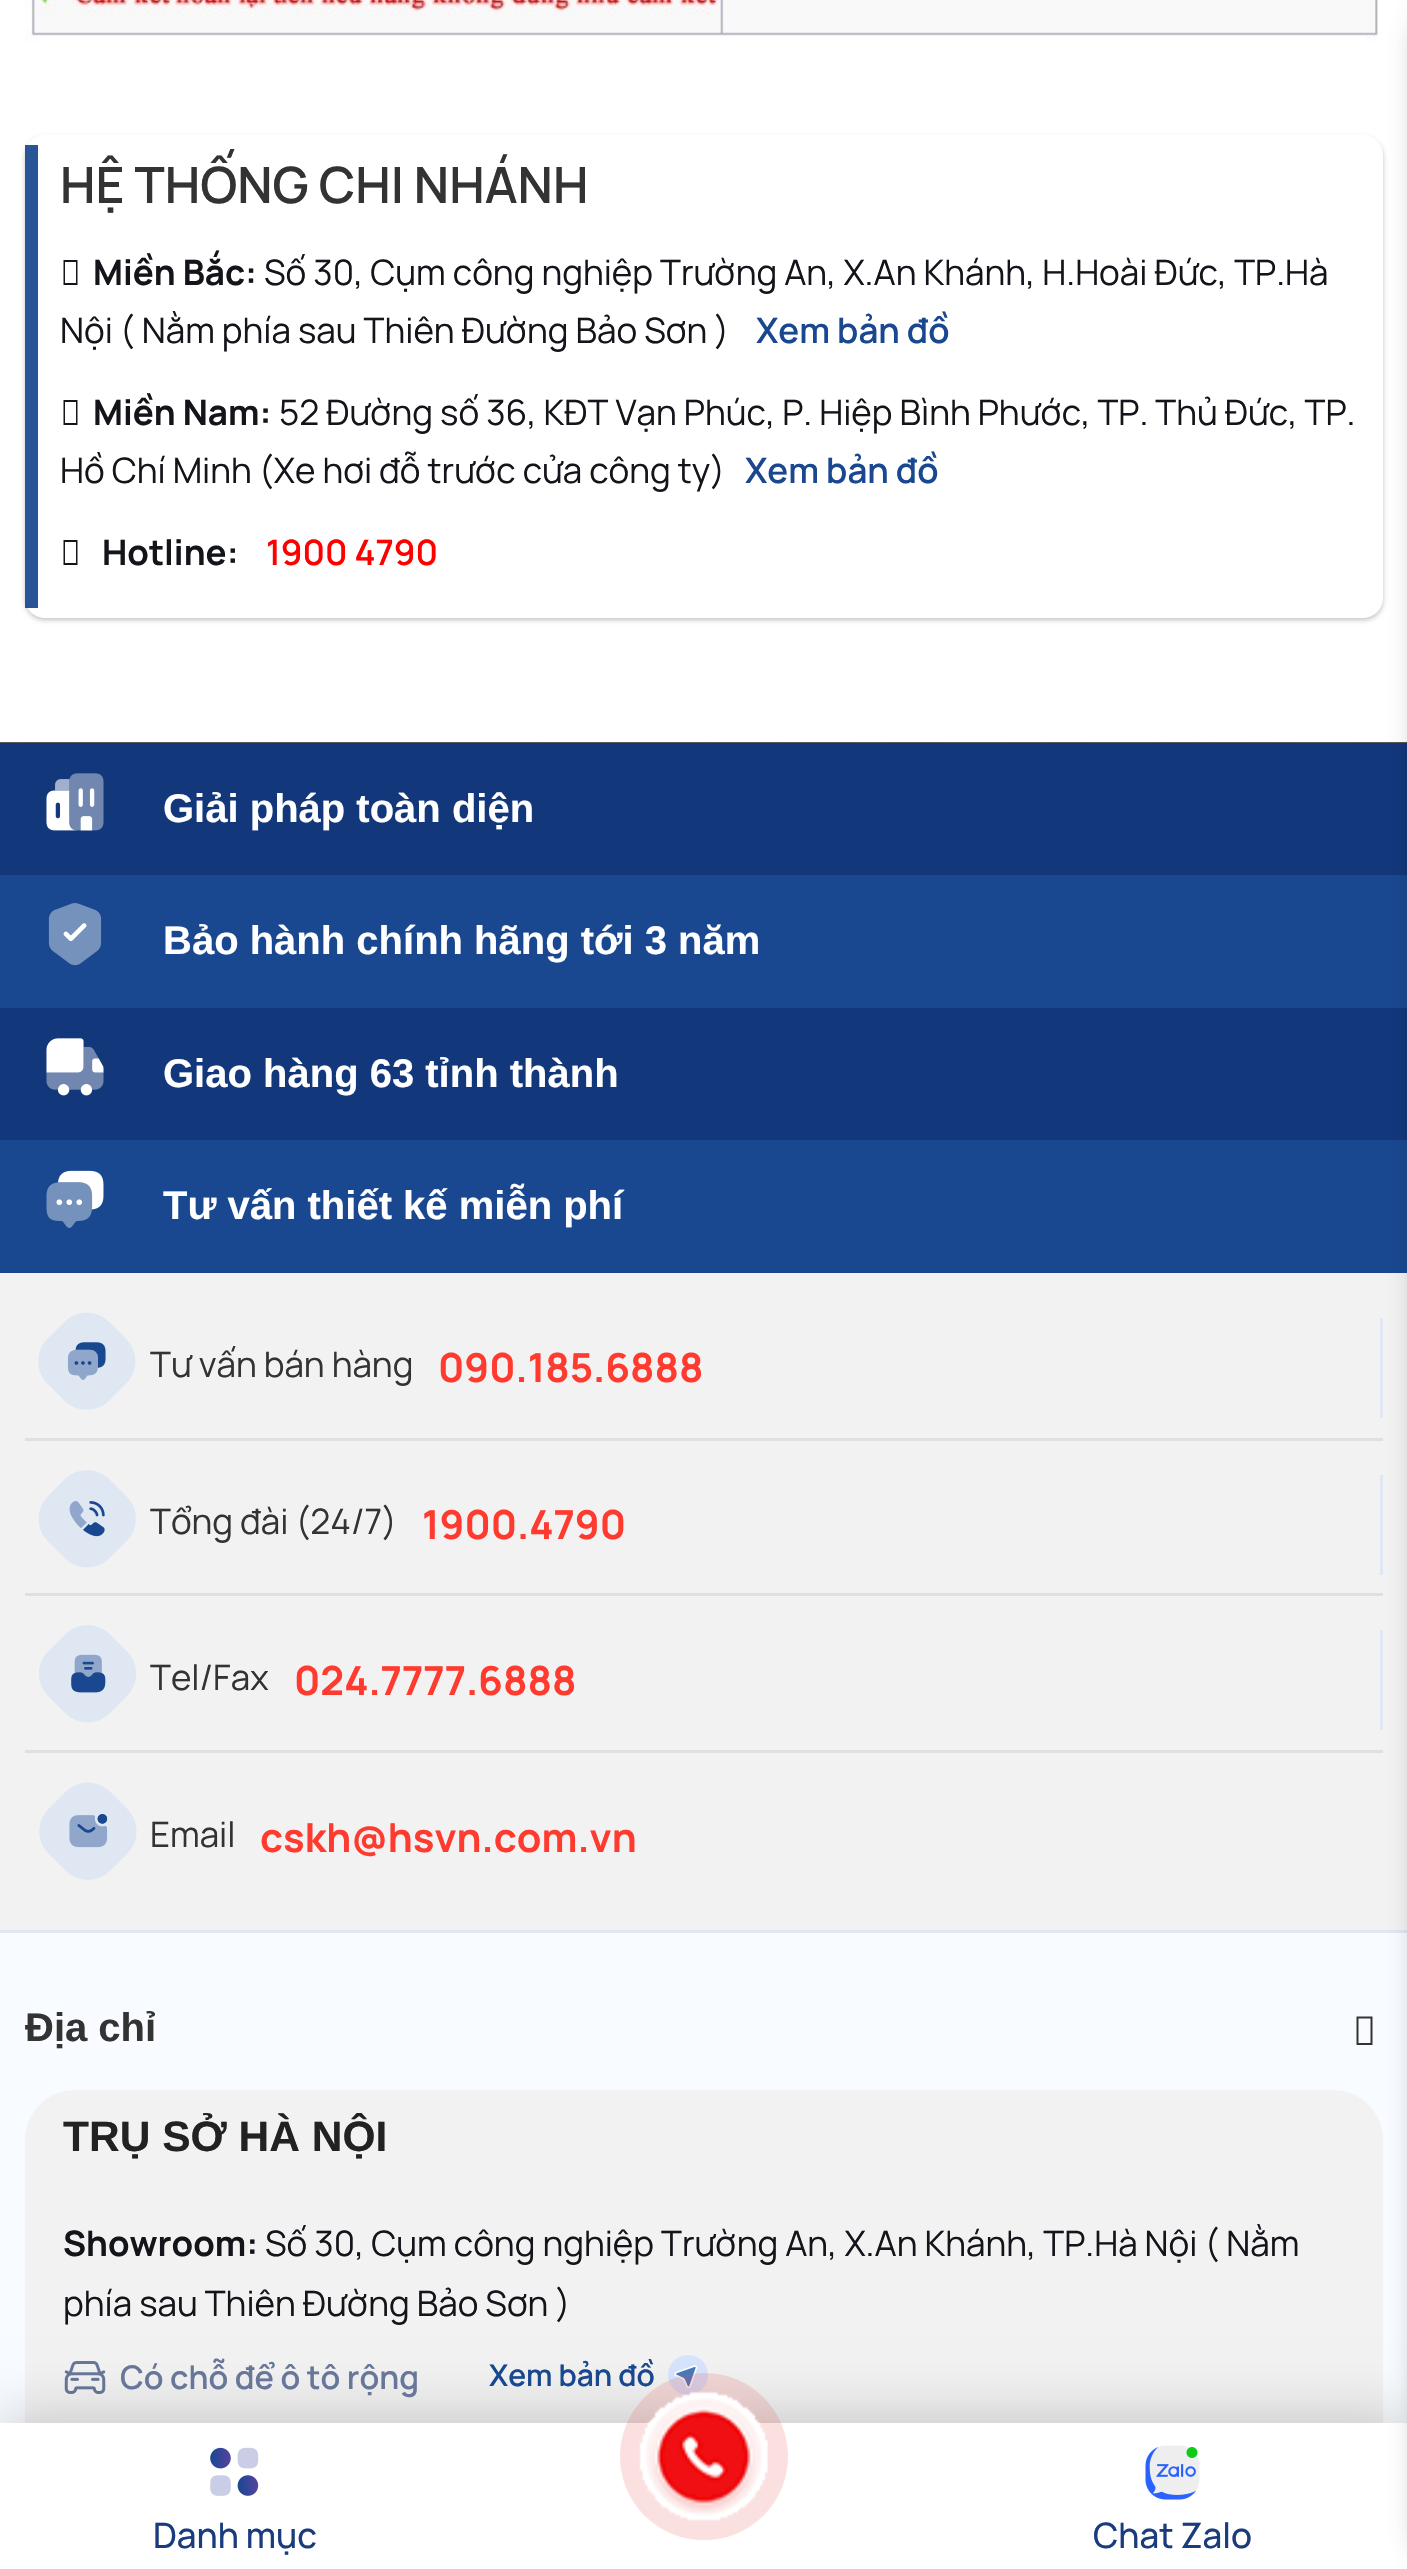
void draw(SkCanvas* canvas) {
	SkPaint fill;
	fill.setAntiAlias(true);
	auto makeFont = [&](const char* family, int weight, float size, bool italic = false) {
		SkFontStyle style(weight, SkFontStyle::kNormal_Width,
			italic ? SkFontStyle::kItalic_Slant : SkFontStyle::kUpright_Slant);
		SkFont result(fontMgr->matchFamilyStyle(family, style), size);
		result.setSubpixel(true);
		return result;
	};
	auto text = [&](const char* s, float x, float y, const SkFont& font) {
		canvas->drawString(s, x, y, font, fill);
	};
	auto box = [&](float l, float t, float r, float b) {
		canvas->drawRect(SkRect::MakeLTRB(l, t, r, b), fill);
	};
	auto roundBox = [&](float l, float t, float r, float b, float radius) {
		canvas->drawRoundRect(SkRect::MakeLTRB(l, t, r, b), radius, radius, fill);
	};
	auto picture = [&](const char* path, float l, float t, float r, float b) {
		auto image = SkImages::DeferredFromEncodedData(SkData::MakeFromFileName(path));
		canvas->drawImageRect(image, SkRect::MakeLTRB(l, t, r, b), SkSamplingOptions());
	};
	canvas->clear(0xFFFFFFFF);
	picture("image0.png", 25, 0, 1378, 42);
	picture("image1.png", 0, 742, 1407, 743);
	fill.setColor(0xFF12377B);
	box(0, 743, 1407, 875);
	fill.setColor(0xFF194890);
	box(0, 875, 1407, 1008);
	fill.setColor(0xFF12377B);
	box(0, 1008, 1407, 1140);
	fill.setColor(0xFF194890);
	box(0, 1140, 1407, 1273);
	fill.setColor(0xFFF2F2F2);
	box(0, 1273, 1407, 1930);
	fill.setColor(0xFFE0E0E0);
	box(25, 1438, 1383, 1441);
	fill.setColor(0xFFDFE7F2);
	box(1380, 1318, 1383, 1418);
	fill.setColor(0xFFE0E0E0);
	box(25, 1593, 1383, 1596);
	fill.setColor(0xFFDFE7F2);
	box(1380, 1475, 1383, 1575);
	fill.setColor(0xFFE0E0E0);
	box(25, 1750, 1383, 1753);
	fill.setColor(0xFFDFE7F2);
	box(1380, 1630, 1383, 1730);
	box(0, 1930, 1407, 1933);
	fill.setColor(0xFFF8FBFF);
	box(0, 1933, 1407, 2423);
	fill.setColor(0xFFF2F2F2);
	roundBox(25, 2090, 1383, 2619, 50);
	picture("image10.png", 64, 2361, 106, 2394);
	picture("image11.png", 668, 2355, 708, 2395);
	fill.setColor(0x26000000);
	fill.setMaskFilter(SkMaskFilter::MakeBlur(kNormal_SkBlurStyle, 24));
	canvas->drawRect(SkRect::MakeLTRB(0, 2410, 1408, 2558), fill);
	fill.setMaskFilter(nullptr);
	fill.setColor(0xFFFFFFFF);
	box(0, 2423, 1407, 2569);
	fill.setColor(0xBF000000);
	fill.setMaskFilter(SkMaskFilter::MakeBlur(kNormal_SkBlurStyle, 17.5f));
	canvas->drawRect(SkRect::MakeLTRB(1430, 25, 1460, 2545), fill);
	fill.setMaskFilter(nullptr);
	canvas->save();
	canvas->clipPath(SkPathBuilder(SkPathFillType::kEvenOdd).moveTo(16, 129).lineTo(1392, 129).lineTo(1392, 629).lineTo(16, 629).close().moveTo(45, 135).lineTo(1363, 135).cubicTo(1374, 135, 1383, 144, 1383, 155).lineTo(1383, 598).cubicTo(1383, 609, 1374, 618, 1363, 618).lineTo(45, 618).cubicTo(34, 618, 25, 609, 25, 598).lineTo(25, 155).cubicTo(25, 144, 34, 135, 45, 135).close().detach(), true);
	fill.setColor(0x3D000000);
	fill.setMaskFilter(SkMaskFilter::MakeBlur(kNormal_SkBlurStyle, 2.5f));
	canvas->drawRoundRect(SkRect::MakeLTRB(25, 138, 1383, 620), 20, 20, fill);
	fill.setMaskFilter(nullptr);
	canvas->restore();
	fill.setColor(0xED194890);
	box(25, 145, 38, 608);
	fill.setColor(0xFF13151B);
	canvas->drawPath(SkPathBuilder().moveTo(63.5f, 285).lineTo(63.5f, 260).lineTo(77.5f, 260).lineTo(77.5f, 285).close().moveTo(65, 283).lineTo(76, 283).lineTo(76, 262).lineTo(65, 262).close().detach(), fill);
	canvas->drawPath(SkPathBuilder().moveTo(63.5f, 425).lineTo(63.5f, 400).lineTo(77.5f, 400).lineTo(77.5f, 425).close().moveTo(65, 423).lineTo(76, 423).lineTo(76, 402).lineTo(65, 402).close().detach(), fill);
	canvas->drawPath(SkPathBuilder().moveTo(63.5f, 565).lineTo(63.5f, 540).lineTo(77.5f, 540).lineTo(77.5f, 565).close().moveTo(65, 563).lineTo(76, 563).lineTo(76, 542).lineTo(65, 542).close().detach(), fill);
	picture("image2.png", 46, 773, 104, 831);
	picture("image3.png", 48, 903, 102, 966);
	picture("image4.png", 46, 1038, 104, 1096);
	picture("image5.png", 46, 1170, 104, 1228);
	picture("image6.png", 38, 1312, 136, 1410);
	picture("image7.png", 38, 1470, 136, 1568);
	picture("image8.png", 39, 1625, 136, 1723);
	picture("image9.png", 39, 1782, 137, 1880);
	fill.setColor(0xFF333333);
	canvas->drawPath(SkPathBuilder().moveTo(1356.5f, 2045).lineTo(1356.5f, 2016.5f).lineTo(1372.5f, 2016.5f).lineTo(1372.5f, 2045).close().moveTo(1358.5f, 2043).lineTo(1370.5f, 2043).lineTo(1370.5f, 2018.5f).lineTo(1358.5f, 2018.5f).close().detach(), fill);
	picture("image12.png", 210, 2447, 259, 2496);
	picture("image14.png", 1145, 2445, 1200, 2500);
	auto font1 = makeFont("Manrope", 600, 50);
	text("HỆ THỐNG CHI NHÁNH", 60, 203, font1);
	auto font2 = makeFont("Manrope", 700, 35);
	fill.setColor(0xFF13151B);
	text("Miền Bắc:", 93, 285, font2);
	auto font3 = makeFont("Manrope", 400, 35);
	text("Số 30, Cụm công nghiệp Trường An, X.An Khánh, H.Hoài Đức, TP.Hà", 264, 285, font3);
	text("Nội ( Nằm phía sau Thiên Đường Bảo Sơn )", 60, 343, font3);
	auto font4 = makeFont("Manrope", 600, 35);
	fill.setColor(0xFF194890);
	text("Xem bản đồ", 756, 343, font4);
	fill.setColor(0xFF13151B);
	text("Miền Nam:", 93, 425, font2);
	text("52 Đường số 36, KĐT Vạn Phúc, P. Hiệp Bình Phước, TP. Thủ Đức, TP.", 279, 425, font3);
	text("Hồ Chí Minh (Xe hơi đỗ trước cửa công ty)", 60, 483, font3);
	fill.setColor(0xFF194890);
	text("Xem bản đồ", 745, 483, font4);
	fill.setColor(0xFF13151B);
	text("Hotline:", 102, 565, font2);
	fill.setColor(0xFFFF0000);
	text("1900 4790", 266, 565, font4);
	auto font5 = makeFont("Liberation Sans", 700, 40);
	fill.setColor(0xFFFFFFFF);
	text("Giải pháp toàn diện", 163, 822, font5);
	text("Bảo hành chính hãng tới 3 năm", 163, 954, font5);
	text("Giao hàng 63 tỉnh thành", 163, 1087, font5);
	text("Tư vấn thiết kế miễn phí", 163, 1219, font5);
	fill.setColor(0xFF333333);
	text("Tư vấn bán hàng", 150, 1377, font3);
	auto font6 = makeFont("Manrope", 700, 40);
	fill.setColor(0xFFFF3B30);
	text("090.185.6888", 438, 1382, font6);
	fill.setColor(0xFF333333);
	text("Tổng đài (24/7)", 150, 1534, font3);
	fill.setColor(0xFFFF3B30);
	text("1900.4790", 422, 1539, font6);
	fill.setColor(0xFF333333);
	text("Tel/Fax", 150, 1690, font3);
	fill.setColor(0xFFFF3B30);
	text("024.7777.6888", 294, 1695, font6);
	fill.setColor(0xFF333333);
	text("Email", 150, 1847, font3);
	fill.setColor(0xFFFF3B30);
	text("cskh@hsvn.com.vn", 260, 1852, font6);
	fill.setColor(0xFF333333);
	text("Địa chỉ", 25, 2041, font5);
	auto font7 = makeFont("Liberation Sans", 700, 42.5f);
	fill.setColor(0xFF222222);
	text("TRỤ SỞ HÀ NỘI", 63, 2151, font7);
	fill.setColor(0xFF13151B);
	text("Showroom:", 63, 2256, font2);
	text("Số 30, Cụm công nghiệp Trường An, X.An Khánh, TP.Hà Nội ( Nằm", 265, 2256, font3);
	text("phía sau Thiên Đường Bảo Sơn )", 63, 2316, font3);
	auto font8 = makeFont("Manrope", 600, 32.5f);
	fill.setColor(0xFF687799);
	text("Có chỗ để ô tô rộng", 120, 2389, font8);
	auto font9 = makeFont("Manrope", 600, 30);
	fill.setColor(0xFF194890);
	text("Xem bản đồ", 489, 2386, font9);
	auto font10 = makeFont("Manrope", 500, 35);
	fill.setColor(0xFF1A3B7C);
	text("Danh mục", 153, 2548, font10);
	fill.setColor(0x2BE64949);
	roundBox(620, 2373, 788, 2540, 83.5f);
	picture("image13.png", 639, 2391, 768, 2521);
	fill.setColor(0xFF1A3B7C);
	text("Chat Zalo", 1093, 2548, font10);
}
